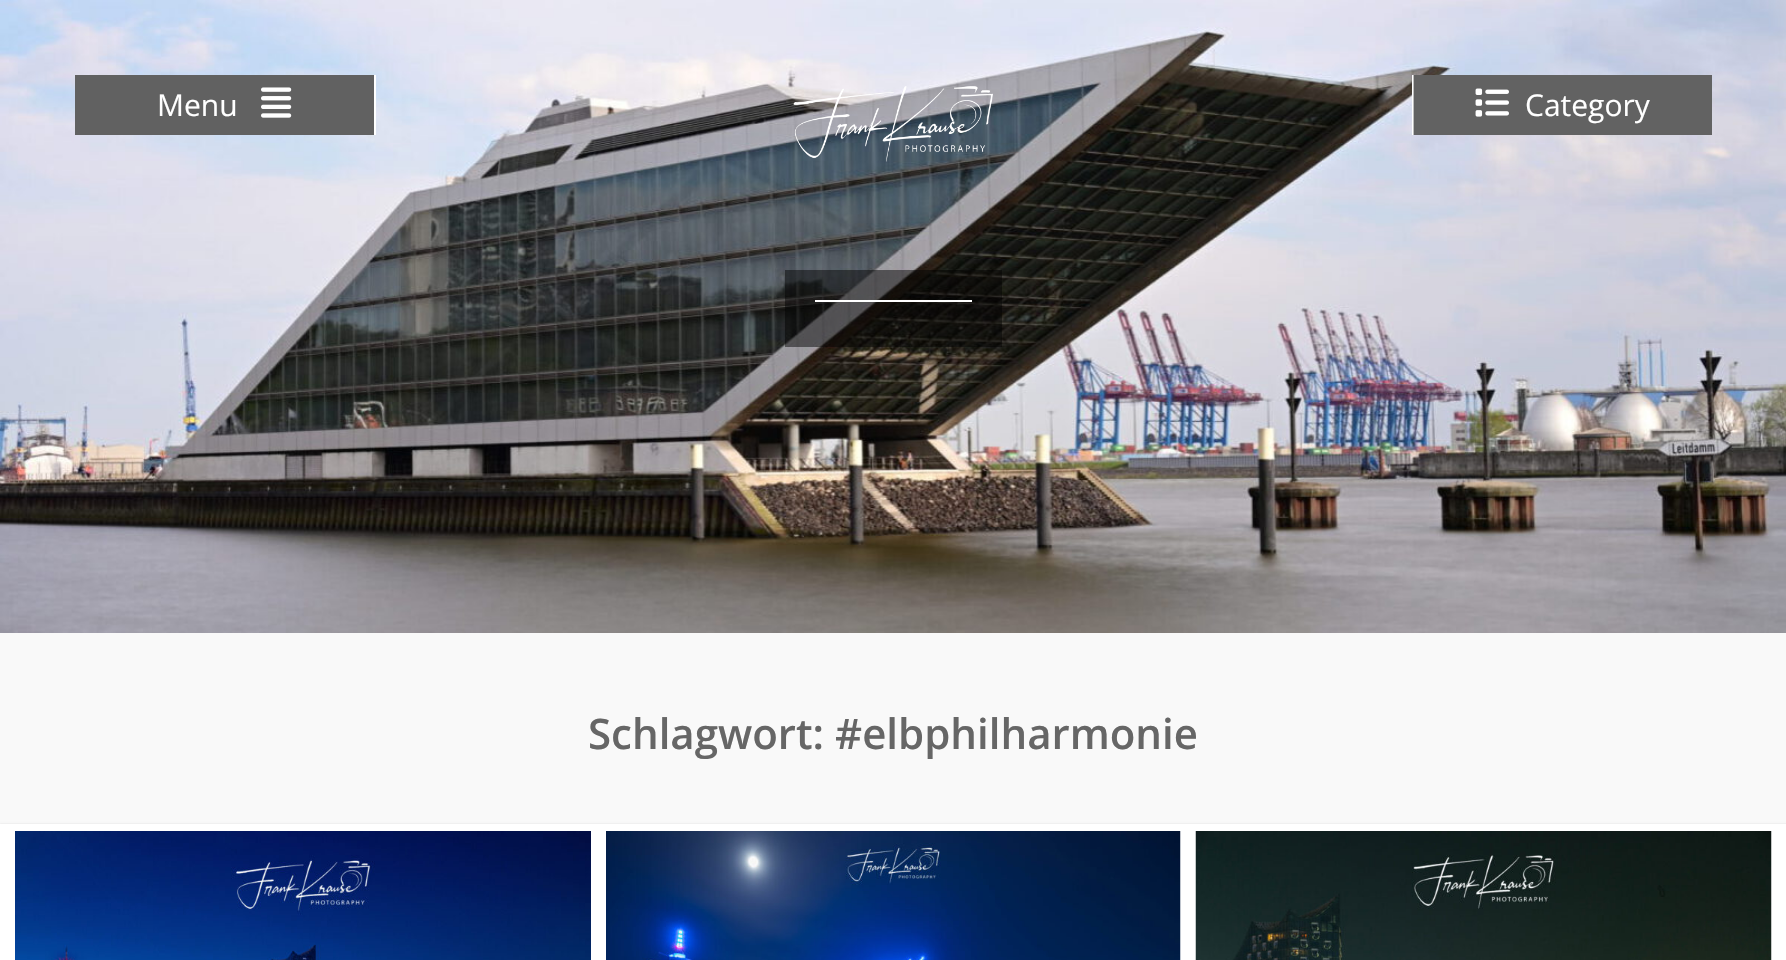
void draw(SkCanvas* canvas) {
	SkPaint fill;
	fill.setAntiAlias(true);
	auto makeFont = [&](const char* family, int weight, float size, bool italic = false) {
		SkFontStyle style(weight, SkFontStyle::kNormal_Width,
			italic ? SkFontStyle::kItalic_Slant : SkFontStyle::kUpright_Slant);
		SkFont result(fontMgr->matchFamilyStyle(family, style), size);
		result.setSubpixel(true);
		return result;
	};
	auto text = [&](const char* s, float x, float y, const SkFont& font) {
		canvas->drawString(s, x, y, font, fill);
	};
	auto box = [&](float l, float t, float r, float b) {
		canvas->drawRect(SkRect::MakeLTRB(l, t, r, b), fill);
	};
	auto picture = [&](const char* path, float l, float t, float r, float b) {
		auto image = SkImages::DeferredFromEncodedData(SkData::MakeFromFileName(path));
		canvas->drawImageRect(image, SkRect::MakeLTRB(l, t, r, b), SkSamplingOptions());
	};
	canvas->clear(0xFFF9F9F9);
	picture("image0.png", 0, 0, 1786, 633);
	fill.setColor(0xFFFFFFFF);
	box(374, 75, 376, 135);
	fill.setColor(0xFF616161);
	box(75, 75, 374, 135);
	picture("image1.png", 261, 87, 292, 118);
	picture("image2.png", 793, 86, 993, 162);
	fill.setColor(0x7A000000);
	box(785, 270, 1002, 347);
	fill.setColor(0xFFFFFFFF);
	box(815, 300, 972, 302);
	fill.setColor(0xFF4B4B4B);
	box(1414, 75, 1712, 135);
	fill.setColor(0xFFFFFFFF);
	box(1412, 75, 1414, 135);
	fill.setColor(0x7D787878);
	box(1413, 75, 1712, 135);
	picture("image3.png", 1475, 88, 1509, 117);
	fill.setColor(0xFFDDDDDD);
	fill.setMaskFilter(SkMaskFilter::MakeBlur(kNormal_SkBlurStyle, 1));
	canvas->drawRect(SkRect::MakeLTRB(0, 824, 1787, 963), fill);
	fill.setMaskFilter(nullptr);
	fill.setColor(0xFFFFFFFF);
	box(0, 824, 1786, 960);
	picture("image4.png", 15, 831, 591, 960);
	picture("image5.png", 606, 831, 1181, 960);
	picture("image6.png", 1195, 831, 1772, 960);
	auto font1 = makeFont("Open Sans", 400, 30);
	text("Menu", 157, 116, font1);
	text("Category", 1525, 116, font1);
	auto font2 = makeFont("Open Sans", 600, 42);
	fill.setColor(0xFF666666);
	text("Schlagwort: #elbphilharmonie", 588, 749, font2);
}
